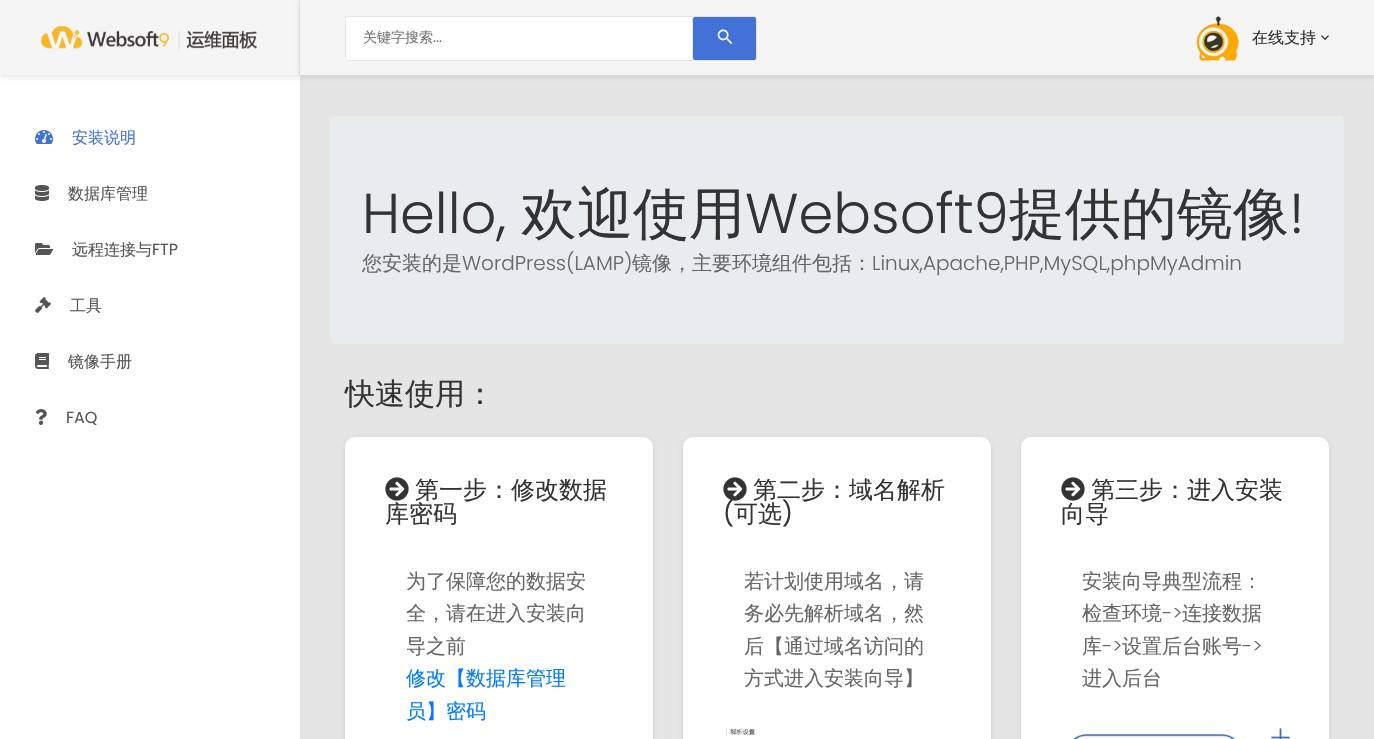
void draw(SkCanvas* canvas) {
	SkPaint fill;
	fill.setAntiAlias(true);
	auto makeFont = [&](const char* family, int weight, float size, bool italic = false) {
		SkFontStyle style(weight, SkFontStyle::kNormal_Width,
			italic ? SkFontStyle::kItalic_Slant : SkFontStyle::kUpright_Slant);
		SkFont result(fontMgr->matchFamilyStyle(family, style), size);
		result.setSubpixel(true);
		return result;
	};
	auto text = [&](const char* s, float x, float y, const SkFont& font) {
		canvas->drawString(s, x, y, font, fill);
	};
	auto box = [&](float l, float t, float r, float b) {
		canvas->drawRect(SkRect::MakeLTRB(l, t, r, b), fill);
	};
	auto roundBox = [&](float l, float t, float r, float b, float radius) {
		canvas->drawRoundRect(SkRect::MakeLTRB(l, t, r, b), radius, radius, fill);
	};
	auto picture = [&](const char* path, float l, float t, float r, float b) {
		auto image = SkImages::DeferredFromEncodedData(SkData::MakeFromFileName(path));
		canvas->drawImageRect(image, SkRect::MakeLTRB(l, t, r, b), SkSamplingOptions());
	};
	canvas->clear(0xFFE5E5E5);
	fill.setColor(0xFFFFFFFF);
	box(0, 75, 300, 739);
	fill.setColor(0x1A000000);
	fill.setMaskFilter(SkMaskFilter::MakeBlur(kNormal_SkBlurStyle, 2.5f));
	canvas->drawRect(SkRect::MakeLTRB(0, 2, 300, 77), fill);
	fill.setMaskFilter(nullptr);
	fill.setColor(0xFFF5F5F5);
	box(0, 0, 299, 75);
	fill.setColor(0xFFE5E5E5);
	box(299, 0, 300, 75);
	picture("image0.png", 40, 26, 257, 51);
	picture("image1.png", 35, 130, 53, 144);
	picture("image2.png", 35, 185, 49, 201);
	picture("image3.png", 35, 243, 53, 255);
	picture("image4.png", 35, 297, 51, 313);
	picture("image5.png", 35, 353, 49, 369);
	picture("image6.png", 35, 409, 47, 425);
	fill.setColor(0x1A000000);
	fill.setMaskFilter(SkMaskFilter::MakeBlur(kNormal_SkBlurStyle, 2.5f));
	canvas->drawRect(SkRect::MakeLTRB(300, 2, 1374, 77), fill);
	fill.setMaskFilter(nullptr);
	fill.setColor(0xFFF5F5F5);
	box(300, 0, 1374, 75);
	fill.setColor(0xFFFFFFFF);
	canvas->drawRoundRect(SkRect::MakeLTRB(345.5f, 16.5f, 694.5f, 60.5f), 2.5f, 2.5f, fill);
	fill.setStyle(SkPaint::kStroke_Style);
	fill.setStrokeWidth(1);
	fill.setColor(0xFFE5E5E5);
	canvas->drawRoundRect(SkRect::MakeLTRB(345.5f, 16.5f, 694.5f, 60.5f), 2.5f, 2.5f, fill);
	fill.setStyle(SkPaint::kFill_Style);
	fill.setColor(0xFF4272D7);
	canvas->drawRoundRect(SkRect::MakeLTRB(692.5f, 16.5f, 756.5f, 60.5f), 2.5f, 2.5f, fill);
	fill.setStyle(SkPaint::kStroke_Style);
	fill.setColor(0xFFE5E5E5);
	canvas->drawRoundRect(SkRect::MakeLTRB(692.5f, 16.5f, 756.5f, 60.5f), 2.5f, 2.5f, fill);
	picture("image7.png", 717, 29, 733, 44);
	picture("image8.png", 1196, 16, 1240, 61);
	picture("image9.png", 1321, 35, 1329, 40);
	fill.setStyle(SkPaint::kFill_Style);
	fill.setColor(0xFFE9ECEF);
	roundBox(330, 116, 1344, 344, 5);
	fill.setColor(0x1A000000);
	fill.setMaskFilter(SkMaskFilter::MakeBlur(kNormal_SkBlurStyle, 2.5f));
	canvas->drawRoundRect(SkRect::MakeLTRB(345, 439, 653, 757), 10, 10, fill);
	fill.setMaskFilter(nullptr);
	fill.setColor(0xFFFFFFFF);
	roundBox(345, 437, 653, 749, 10);
	picture("image10.png", 385, 477, 409, 501);
	fill.setColor(0x1A000000);
	fill.setMaskFilter(SkMaskFilter::MakeBlur(kNormal_SkBlurStyle, 2.5f));
	canvas->drawRoundRect(SkRect::MakeLTRB(683, 439, 991, 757), 10, 10, fill);
	fill.setMaskFilter(nullptr);
	fill.setColor(0xFFFFFFFF);
	roundBox(683, 437, 991, 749, 10);
	picture("image10.png", 723, 477, 747, 501);
	picture("image11.png", 726, 727, 755, 736);
	fill.setColor(0x1A000000);
	fill.setMaskFilter(SkMaskFilter::MakeBlur(kNormal_SkBlurStyle, 2.5f));
	canvas->drawRoundRect(SkRect::MakeLTRB(1021, 439, 1329, 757), 10, 10, fill);
	fill.setMaskFilter(nullptr);
	fill.setColor(0xFFFFFFFF);
	roundBox(1021, 437, 1329, 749, 10);
	picture("image10.png", 1061, 477, 1085, 501);
	picture("image12.png", 1073, 728, 1291, 739);
	auto font1 = makeFont("WenQuanYi Zen Hei", 500, 16);
	fill.setColor(0xFF4272D7);
	text("安装说明", 72, 143, font1);
	fill.setColor(0xFF555555);
	text("数据库管理", 68, 199, font1);
	text("远程连接与", 72, 255, font1);
	auto font2 = makeFont("Poppins", 400, 16);
	text("FTP", 152, 255, font2);
	text("工具", 70, 311, font1);
	text("镜像手册", 68, 367, font1);
	text("FAQ", 66, 423, font2);
	auto font3 = makeFont("WenQuanYi Zen Hei", 500, 14);
	fill.setColor(0xFF757575);
	text("关键字搜索", 363, 42, font3);
	auto font4 = makeFont("Poppins", 400, 14);
	text("...", 433, 42, font4);
	fill.setColor(0xFF333333);
	text("在线支持", 1252, 43, font1);
	auto font5 = makeFont("Poppins", 300, 56);
	text("Hello,", 362, 233, font5);
	auto font6 = makeFont("WenQuanYi Zen Hei", 500, 56);
	text("欢迎使用", 521, 233, font6);
	text("Websoft9", 745, 233, font5);
	text("提供的镜像", 1009, 233, font6);
	text("!", 1289, 233, font5);
	auto font7 = makeFont("WenQuanYi Zen Hei", 500, 20);
	fill.setColor(0xFF666666);
	text("您安装的是", 362, 270, font7);
	auto font8 = makeFont("Poppins", 300, 20);
	text("WordPress(LAMP)", 462, 270, font8);
	text("镜像，主要环境组件包括：", 632, 270, font7);
	text("Linux,Apache,PHP,MySQL,phpMyAdmin", 872, 270, font8);
	auto font9 = makeFont("WenQuanYi Zen Hei", 500, 30);
	fill.setColor(0xFF333333);
	text("快速使用：", 345, 404, font9);
	auto font10 = makeFont("WenQuanYi Zen Hei", 500, 24);
	text("第一步：修改数据", 415, 498, font10);
	text("库密码", 385, 522, font10);
	fill.setColor(0xFF666666);
	text("为了保障您的数据安", 406, 588, font7);
	text("全，请在进入安装向", 406, 620, font7);
	text("导之前", 406, 653, font7);
	fill.setColor(0xFF007BFF);
	text("修改【数据库管理", 406, 685, font7);
	text("员】密码", 406, 718, font7);
	fill.setColor(0xFF333333);
	text("第二步：域名解析", 753, 498, font10);
	auto font11 = makeFont("Poppins", 400, 24);
	text("(", 723, 522, font11);
	text("可选", 734, 522, font10);
	text(")", 782, 522, font11);
	fill.setColor(0xFF666666);
	text("若计划使用域名，请", 744, 588, font7);
	text("务必先解析域名，然", 744, 620, font7);
	text("后【通过域名访问的", 744, 653, font7);
	text("方式进入安装向导】", 744, 685, font7);
	fill.setColor(0xFF333333);
	text("第三步：进入安装", 1091, 498, font10);
	text("向导", 1061, 522, font10);
	fill.setColor(0xFF666666);
	text("安装向导典型流程：", 1082, 588, font7);
	text("检查环境", 1082, 620, font7);
	text("->", 1162, 620, font8);
	text("连接数据", 1182, 620, font7);
	text("库", 1082, 653, font7);
	text("->", 1102, 653, font8);
	text("设置后台账号", 1122, 653, font7);
	text("->", 1242, 653, font8);
	text("进入后台", 1082, 685, font7);
}
